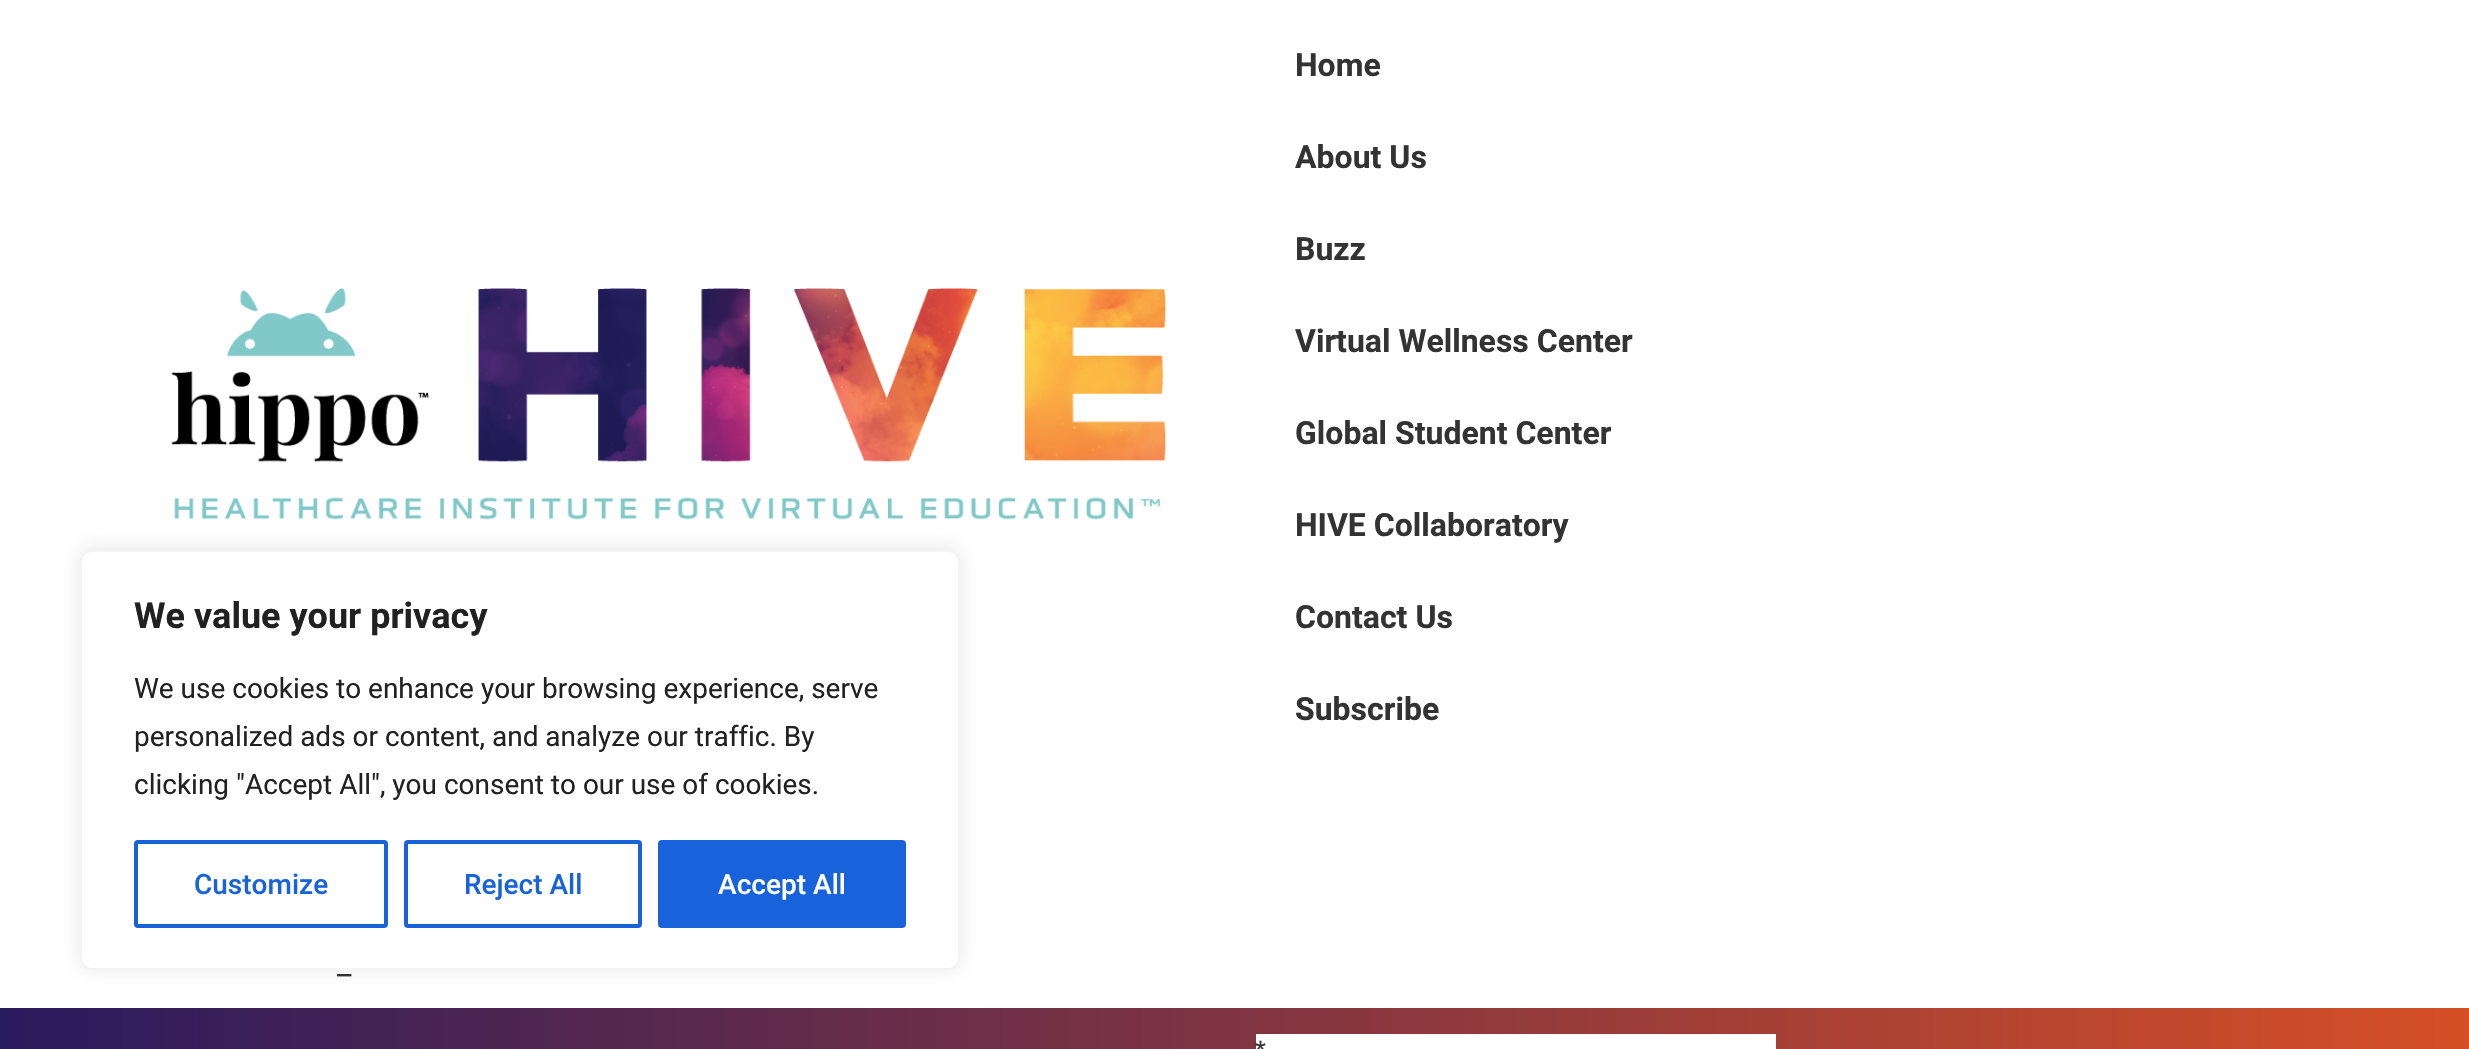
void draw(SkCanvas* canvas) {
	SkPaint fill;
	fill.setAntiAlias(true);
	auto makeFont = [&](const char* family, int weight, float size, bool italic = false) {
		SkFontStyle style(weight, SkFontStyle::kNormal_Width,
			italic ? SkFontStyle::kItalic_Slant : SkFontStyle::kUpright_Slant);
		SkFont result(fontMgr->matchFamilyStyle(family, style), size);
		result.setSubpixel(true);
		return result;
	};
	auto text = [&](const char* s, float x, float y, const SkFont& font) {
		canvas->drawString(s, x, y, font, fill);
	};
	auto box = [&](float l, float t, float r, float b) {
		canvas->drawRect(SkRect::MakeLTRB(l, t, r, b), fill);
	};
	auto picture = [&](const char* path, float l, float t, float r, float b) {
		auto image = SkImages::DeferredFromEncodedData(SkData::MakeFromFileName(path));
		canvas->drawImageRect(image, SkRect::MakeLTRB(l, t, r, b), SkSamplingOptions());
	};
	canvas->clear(0xFFFFFFFF);
	picture("image0.png", 171, 288, 1166, 520);
	fill.setColor(0x4DACABAB);
	fill.setMaskFilter(SkMaskFilter::MakeBlur(kNormal_SkBlurStyle, 10));
	canvas->drawRoundRect(SkRect::MakeLTRB(80, 548, 960, 968), 12, 12, fill);
	fill.setMaskFilter(nullptr);
	fill.setColor(0xFFFFFFFF);
	canvas->drawRoundRect(SkRect::MakeLTRB(81, 551, 959, 969), 11, 11, fill);
	fill.setStyle(SkPaint::kStroke_Style);
	fill.setStrokeWidth(2);
	fill.setColor(0xFFF4F4F4);
	canvas->drawRoundRect(SkRect::MakeLTRB(81, 551, 959, 969), 11, 11, fill);
	fill.setStrokeWidth(4);
	fill.setColor(0xFF1863DC);
	canvas->drawRoundRect(SkRect::MakeLTRB(136, 842, 386, 926), 2, 2, fill);
	canvas->drawRoundRect(SkRect::MakeLTRB(406, 842, 640, 926), 2, 2, fill);
	fill.setStyle(SkPaint::kFill_Style);
	canvas->drawRoundRect(SkRect::MakeLTRB(660, 842, 904, 926), 2, 2, fill);
	fill.setStyle(SkPaint::kStroke_Style);
	canvas->drawRoundRect(SkRect::MakeLTRB(660, 842, 904, 926), 2, 2, fill);
	fill.setStyle(SkPaint::kFill_Style);
	{
		const SkColor colors[] = {0xFF2A1A5E, 0xFFD64F26};
		const float stops[] = {0, 1};
		const SkPoint ends[] = {{0, 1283}, {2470, 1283}};
		fill.setShader(SkGradientShader::MakeLinear(ends, colors, stops, 2, SkTileMode::kClamp));
		fill.setAlpha(255);
	}
	box(0, 1008, 2469, 1049);
	fill.setShader(nullptr);
	fill.setColor(0xFFFFFFFF);
	box(1256, 1034, 1776, 1049);
	auto font1 = makeFont("Roboto", 700, 36);
	fill.setColor(0xFF212121);
	text("We value your privacy", 134, 628, font1);
	auto font2 = makeFont("Roboto", 400, 28);
	text("We use cookies to enhance your browsing experience, serve", 134, 698, font2);
	text("personalized ads or content, and analyze our traffic. By", 134, 746, font2);
	text("clicking \"Accept All\", you consent to our use of cookies.", 134, 794, font2);
	auto font3 = makeFont("Roboto", 500, 28);
	fill.setColor(0xFF1863DC);
	text("Customize", 194, 894, font3);
	text("Reject All", 464, 894, font3);
	fill.setColor(0xFFFFFFFF);
	text("Accept All", 718, 894, font3);
	auto font4 = makeFont("Roboto", 700, 32);
	fill.setColor(0xFF333333);
	text("Home", 1295, 76, font4);
	text("About Us", 1295, 168, font4);
	text("Buzz", 1295, 260, font4);
	text("Virtual Wellness Center", 1295, 352, font4);
	text("Global Student Center", 1295, 444, font4);
	text("HIVE Collaboratory", 1295, 536, font4);
	text("Contact Us", 1295, 628, font4);
	text("Subscribe", 1295, 720, font4);
	auto font5 = makeFont("Roboto", 400, 32);
	text("_", 337, 974, font5);
	auto font6 = makeFont("Liberation Sans", 400, 28);
	text("*", 1255, 1060, font6);
}
